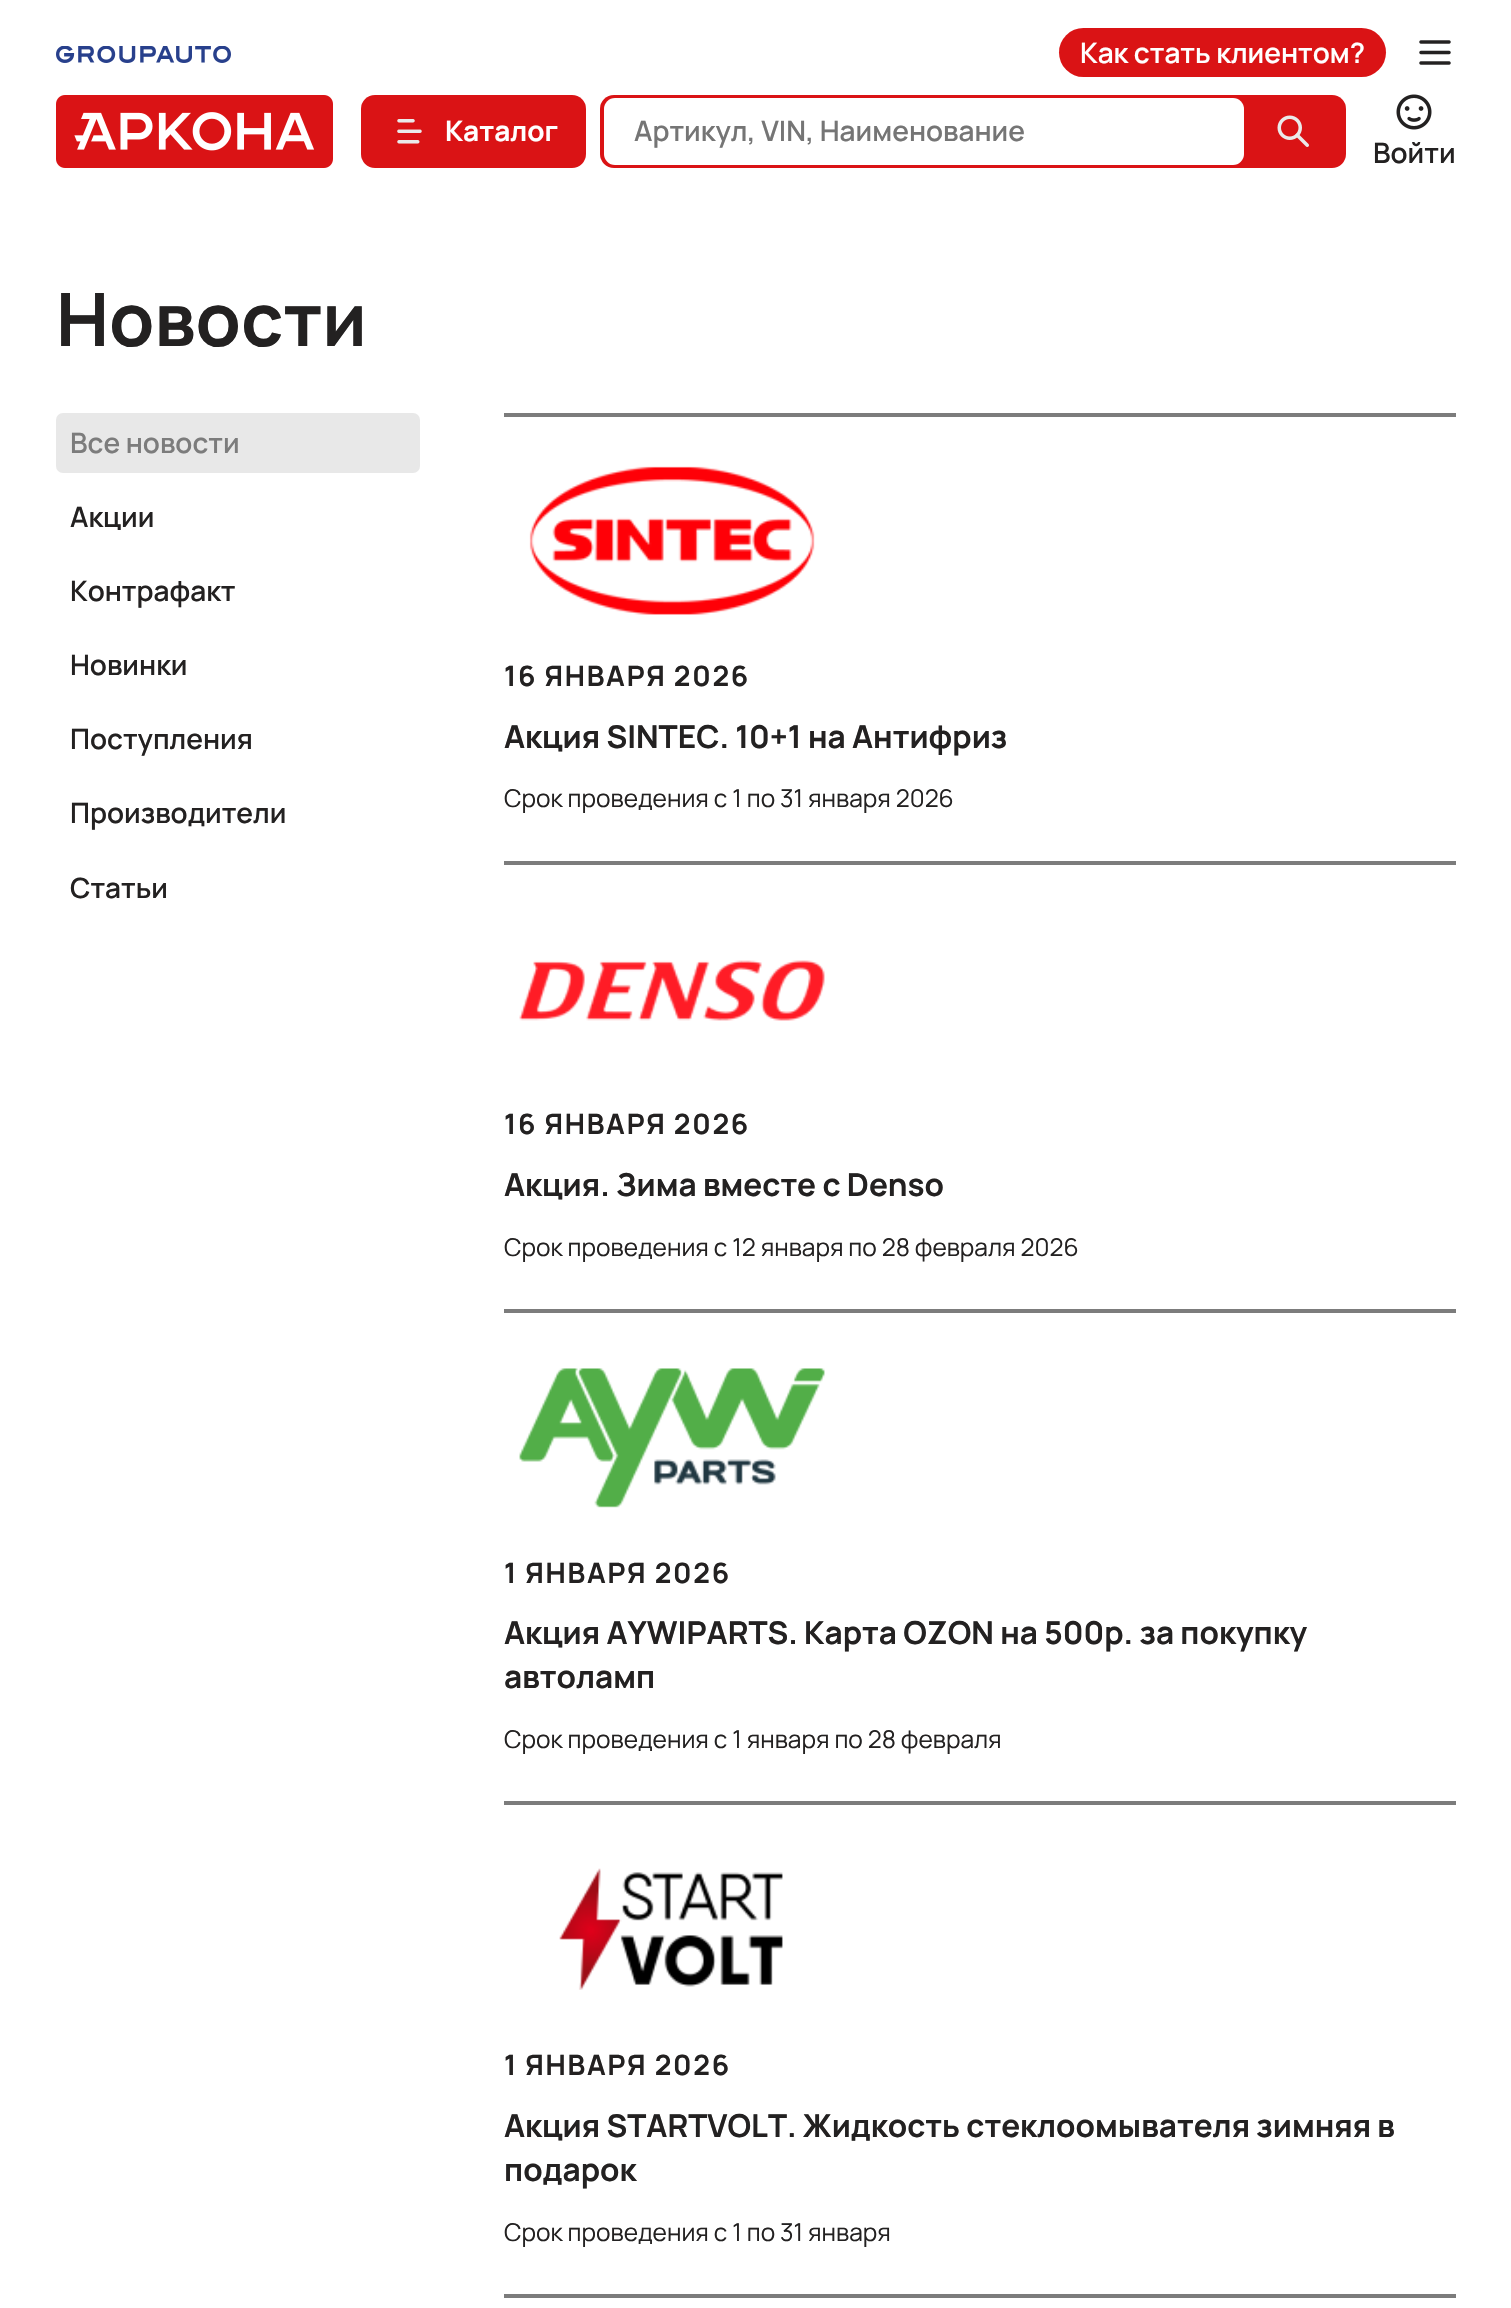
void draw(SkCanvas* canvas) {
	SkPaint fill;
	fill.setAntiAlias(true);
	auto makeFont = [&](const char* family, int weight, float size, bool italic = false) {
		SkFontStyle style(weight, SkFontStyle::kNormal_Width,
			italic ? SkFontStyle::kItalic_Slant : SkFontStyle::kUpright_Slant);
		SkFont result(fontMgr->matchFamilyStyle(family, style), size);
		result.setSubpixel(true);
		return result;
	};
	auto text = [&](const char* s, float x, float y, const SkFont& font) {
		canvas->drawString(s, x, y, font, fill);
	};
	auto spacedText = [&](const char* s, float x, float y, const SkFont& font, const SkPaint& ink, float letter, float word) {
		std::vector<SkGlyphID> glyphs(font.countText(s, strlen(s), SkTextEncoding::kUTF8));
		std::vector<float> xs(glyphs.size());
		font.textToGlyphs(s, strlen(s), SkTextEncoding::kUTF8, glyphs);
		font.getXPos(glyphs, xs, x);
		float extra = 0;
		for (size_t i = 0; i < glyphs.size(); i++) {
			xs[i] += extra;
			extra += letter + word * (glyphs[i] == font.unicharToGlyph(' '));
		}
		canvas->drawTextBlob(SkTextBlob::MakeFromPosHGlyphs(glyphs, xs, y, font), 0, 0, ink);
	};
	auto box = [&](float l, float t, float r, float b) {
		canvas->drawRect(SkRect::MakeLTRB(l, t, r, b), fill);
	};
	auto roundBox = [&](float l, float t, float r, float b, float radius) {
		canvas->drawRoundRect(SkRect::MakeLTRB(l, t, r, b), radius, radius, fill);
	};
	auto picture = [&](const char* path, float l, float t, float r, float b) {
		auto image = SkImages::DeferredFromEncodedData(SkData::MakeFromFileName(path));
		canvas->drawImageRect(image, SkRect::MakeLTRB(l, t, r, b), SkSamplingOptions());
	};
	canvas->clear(0xFFFFFFFF);
	picture("image0.png", 56, 46, 231, 63);
	fill.setColor(0xFFDA1315);
	roundBox(1059, 28, 1386, 77, 24.5f);
	picture("image1.png", 1419, 40, 1451, 65);
	picture("image2.png", 56, 95, 333, 168);
	roundBox(361, 95, 586, 168, 14);
	picture("image3.png", 397, 119, 422, 144);
	roundBox(600, 95, 1346, 168, 14);
	fill.setColor(0xFFFFFFFF);
	roundBox(604, 98, 1244, 165, 11);
	picture("image4.png", 1277, 115, 1309, 147);
	picture("image5.png", 1396, 94, 1432, 130);
	fill.setColor(0xFFE8E8E8);
	roundBox(56, 413, 420, 473, 7);
	fill.setColor(0xFF7C7C7C);
	box(504, 413, 1456, 417);
	box(504, 861, 1456, 865);
	picture("image6.png", 529, 466, 815, 615);
	box(504, 1309, 1456, 1313);
	picture("image7.png", 519, 960, 825, 1021);
	box(504, 1801, 1456, 1805);
	picture("image8.png", 519, 1368, 825, 1508);
	box(504, 2294, 1456, 2298);
	picture("image9.png", 559, 1868, 783, 1990);
	auto font1 = makeFont("Manrope", 600, 28);
	fill.setColor(0xFFFFFFFF);
	text("Как стать клиентом?", 1080, 63, font1);
	auto font2 = makeFont("Manrope", 700, 28);
	text("Каталог", 445, 141, font2);
	fill.setColor(0xFF757575);
	text("Артикул, VIN, Наименование", 634, 141, font1);
	fill.setColor(0xFF232121);
	text("Войти", 1373, 163, font1);
	auto font3 = makeFont("Manrope", 700, 73.5f);
	text("Новости", 56, 346, font3);
	fill.setColor(0xFF7C7C7C);
	text("Все новости", 70, 453, font1);
	fill.setColor(0xFF232121);
	text("Акции", 70, 527, font1);
	text("Контрафакт", 70, 601, font1);
	text("Новинки", 70, 675, font1);
	text("Поступления", 70, 749, font1);
	text("Производители", 70, 823, font1);
	text("Статьи", 70, 898, font1);
	spacedText("16 ЯНВАРЯ 2026", 504, 686, font2, fill, 1.75f, 0);
	auto font4 = makeFont("Manrope", 700, 31.5f);
	text("Акция SINTEC. 10+1 на Антифриз", 504, 748, font4);
	auto font5 = makeFont("Manrope", 400, 24.5f);
	text("Срок проведения с 1 по 31 января 2026", 504, 807, font5);
	spacedText("16 ЯНВАРЯ 2026", 504, 1134, font2, fill, 1.75f, 0);
	text("Акция. Зима вместе с Denso", 504, 1196, font4);
	text("Срок проведения с 12 января по 28 февраля 2026", 504, 1256, font5);
	spacedText("1 ЯНВАРЯ 2026", 504, 1583, font2, fill, 1.75f, 0);
	text("Акция AYWIPARTS. Карта OZON на 500р. за покупку", 504, 1644, font4);
	text("автоламп", 504, 1688, font4);
	text("Срок проведения с 1 января по 28 февраля", 504, 1748, font5);
	spacedText("1 ЯНВАРЯ 2026", 504, 2075, font2, fill, 1.75f, 0);
	text("Акция STARTVOLT. Жидкость стеклоомывателя зимняя в", 504, 2137, font4);
	text("подарок", 504, 2181, font4);
	text("Срок проведения c 1 по 31 января", 504, 2241, font5);
}
